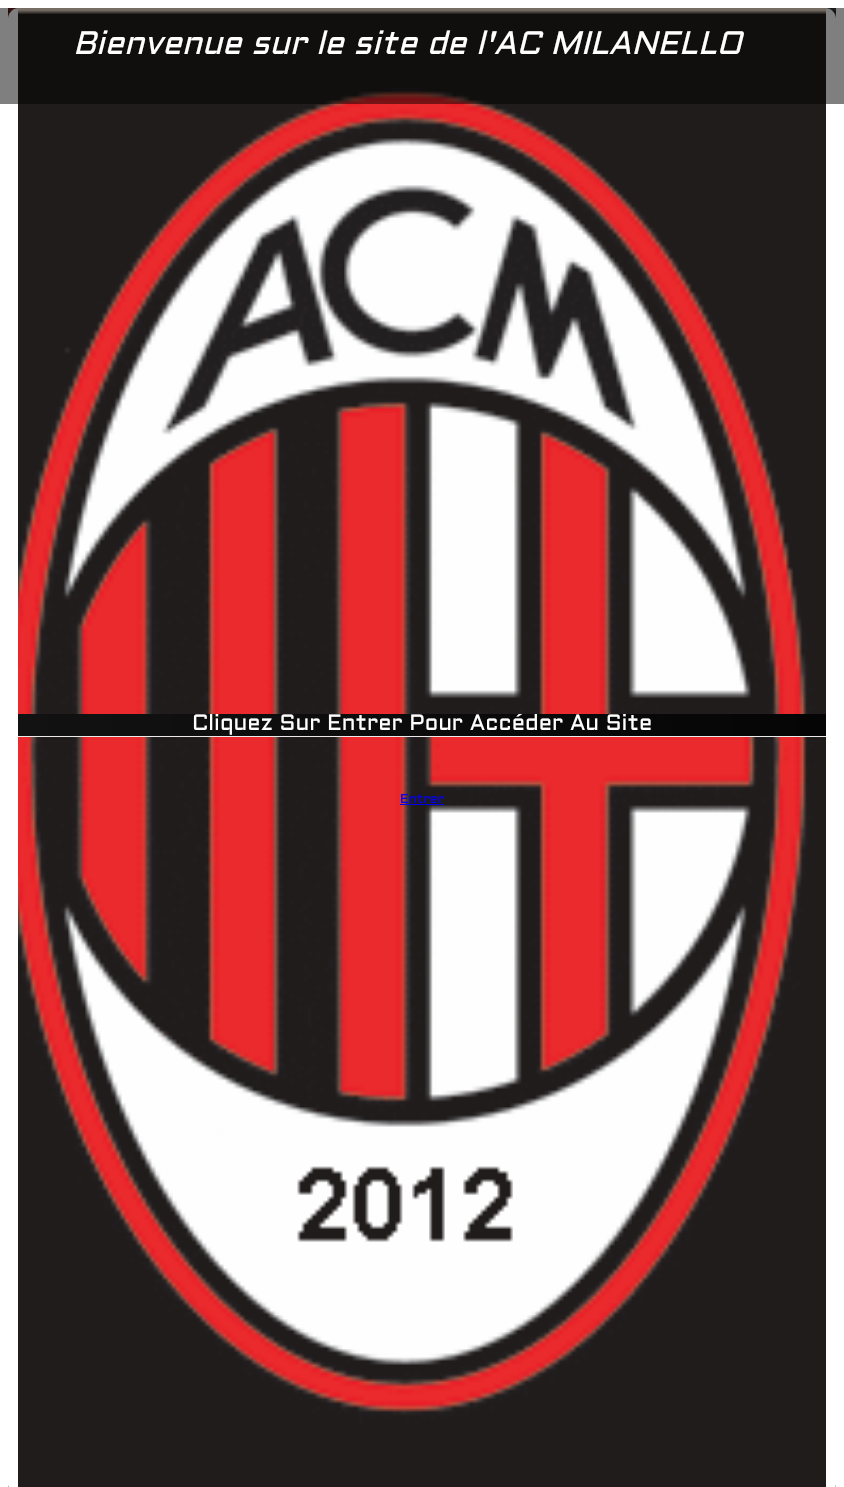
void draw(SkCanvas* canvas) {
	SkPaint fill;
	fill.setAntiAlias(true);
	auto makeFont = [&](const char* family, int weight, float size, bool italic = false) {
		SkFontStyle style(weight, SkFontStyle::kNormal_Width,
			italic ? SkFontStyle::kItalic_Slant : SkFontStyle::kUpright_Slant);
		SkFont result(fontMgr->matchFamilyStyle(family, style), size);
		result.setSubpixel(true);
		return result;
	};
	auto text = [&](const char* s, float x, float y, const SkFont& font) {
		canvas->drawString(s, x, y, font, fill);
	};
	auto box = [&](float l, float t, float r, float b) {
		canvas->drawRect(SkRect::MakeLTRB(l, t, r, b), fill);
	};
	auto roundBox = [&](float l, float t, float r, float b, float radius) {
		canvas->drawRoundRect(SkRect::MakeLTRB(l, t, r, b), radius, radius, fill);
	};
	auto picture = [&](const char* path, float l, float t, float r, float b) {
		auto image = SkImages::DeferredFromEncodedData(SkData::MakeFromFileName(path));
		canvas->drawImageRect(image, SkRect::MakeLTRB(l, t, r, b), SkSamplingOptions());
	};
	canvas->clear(0xFFFFFFFF);
	fill.setColor(0xFF080808);
	box(8, 1484, 836, 1487);
	picture("image0.png", 8, 8, 836, 19);
	fill.setColor(0xFFFFFFFF);
	roundBox(8, 8, 836, 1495, 11);
	picture("image1.png", 18, 8, 826, 1487);
	fill.setColor(0x80000000);
	box(0, 8, 844, 104);
	{
		const SkColor colors[] = {0xFF121212, 0xFF050505};
		const float stops[] = {0, 1};
		const SkPoint ends[] = {{18, 725}, {826, 725}};
		fill.setShader(SkGradientShader::MakeLinear(ends, colors, stops, 2, SkTileMode::kClamp));
		fill.setAlpha(255);
	}
	box(18, 714, 826, 736);
	fill.setShader(nullptr);
	fill.setColor(0xFFEBEBEB);
	box(18, 736, 826, 737);
	fill.setColor(0xFF0000EE);
	box(400, 804, 444, 805);
	auto font1 = makeFont("Aldrich", 400, 32.5f, true);
	fill.setColor(0xFFFFFFFF);
	text("Bienvenue sur le site de l'AC MILANELLO", 73, 54, font1);
	auto font2 = makeFont("Aldrich", 400, 22.1f);
	text("Cliquez Sur Entrer Pour Accéder Au Site", 192, 730, font2);
	auto font3 = makeFont("Aldrich", 400, 13);
	fill.setColor(0xFF0000EE);
	text("Entrer", 400, 803, font3);
}
